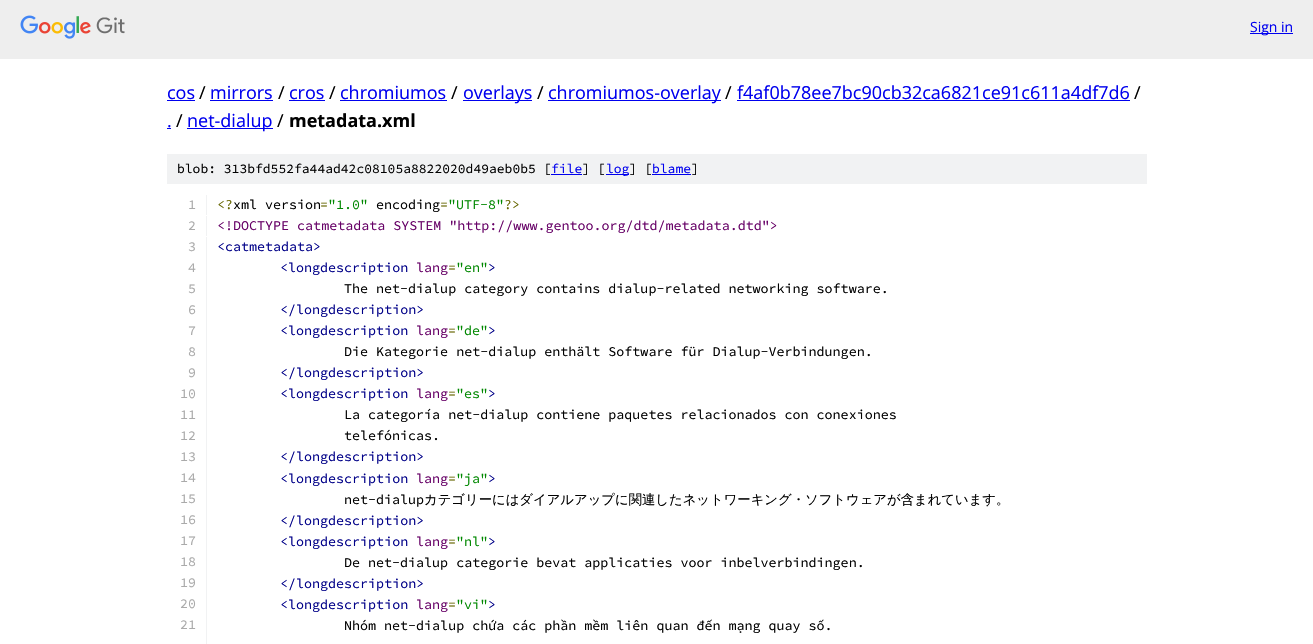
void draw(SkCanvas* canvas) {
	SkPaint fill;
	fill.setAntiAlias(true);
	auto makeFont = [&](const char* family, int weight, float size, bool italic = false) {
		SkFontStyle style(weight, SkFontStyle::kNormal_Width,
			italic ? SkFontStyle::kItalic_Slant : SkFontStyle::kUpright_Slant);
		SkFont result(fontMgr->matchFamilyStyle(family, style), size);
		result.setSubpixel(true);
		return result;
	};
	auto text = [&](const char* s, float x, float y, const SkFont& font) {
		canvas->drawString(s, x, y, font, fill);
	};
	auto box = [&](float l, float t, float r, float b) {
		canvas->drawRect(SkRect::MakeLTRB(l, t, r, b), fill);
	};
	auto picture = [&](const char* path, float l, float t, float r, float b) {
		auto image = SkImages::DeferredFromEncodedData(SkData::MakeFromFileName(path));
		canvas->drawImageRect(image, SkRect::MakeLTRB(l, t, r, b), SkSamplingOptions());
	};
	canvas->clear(0xFFFFFFFF);
	fill.setColor(0xFFEEEEEE);
	box(0, 0, 1313, 59);
	picture("image0.png", 20, 15, 125, 39);
	fill.setColor(0xFF0000EE);
	box(1250, 33, 1293, 34);
	box(167, 100, 195, 101);
	box(210, 100, 273, 101);
	box(289, 100, 325, 101);
	box(340, 100, 447, 101);
	box(463, 100, 532, 101);
	box(548, 100, 721, 101);
	box(737, 100, 1130, 101);
	box(167, 128, 171, 129);
	box(187, 128, 273, 129);
	fill.setColor(0xFFF1F2F3);
	box(167, 154, 1147, 184);
	fill.setColor(0xFF0000EE);
	box(551, 174, 582, 175);
	box(606, 174, 629, 175);
	box(652, 174, 691, 175);
	fill.setColor(0xFFF1F2F3);
	box(206, 195, 207, 215);
	box(206, 216, 207, 236);
	box(206, 237, 207, 644);
	auto font1 = makeFont("Open Sans", 400, 14);
	fill.setColor(0xFF0000EE);
	text("Sign in", 1250, 32, font1);
	auto font2 = makeFont("Open Sans", 400, 18);
	text("cos", 167, 99, font2);
	fill.setColor(0xFF000000);
	text("/", 199, 99, font2);
	fill.setColor(0xFF0000EE);
	text("mirrors", 210, 99, font2);
	fill.setColor(0xFF000000);
	text("/", 278, 99, font2);
	fill.setColor(0xFF0000EE);
	text("cros", 289, 99, font2);
	fill.setColor(0xFF000000);
	text("/", 329, 99, font2);
	fill.setColor(0xFF0000EE);
	text("chromiumos", 340, 99, font2);
	fill.setColor(0xFF000000);
	text("/", 451, 99, font2);
	fill.setColor(0xFF0000EE);
	text("overlays", 463, 99, font2);
	fill.setColor(0xFF000000);
	text("/", 537, 99, font2);
	fill.setColor(0xFF0000EE);
	text("chromiumos-overlay", 548, 99, font2);
	fill.setColor(0xFF000000);
	text("/", 725, 99, font2);
	fill.setColor(0xFF0000EE);
	text("f4af0b78ee7bc90cb32ca6821ce91c611a4df7d6", 737, 99, font2);
	fill.setColor(0xFF000000);
	text("/", 1134, 99, font2);
	fill.setColor(0xFF0000EE);
	text(".", 167, 127, font2);
	fill.setColor(0xFF000000);
	text("/", 176, 127, font2);
	fill.setColor(0xFF0000EE);
	text("net-dialup", 187, 127, font2);
	fill.setColor(0xFF000000);
	text("/", 277, 127, font2);
	auto font3 = makeFont("Open Sans", 700, 18);
	text("metadata.xml", 289, 127, font3);
	auto font4 = makeFont("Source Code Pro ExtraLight", 200, 13);
	text("blob: 313bfd552fa44ad42c08105a8822020d49aeb0b5 [", 177, 173, font4);
	fill.setColor(0xFF0000EE);
	text("file", 551, 173, font4);
	fill.setColor(0xFF000000);
	text("] [", 582, 173, font4);
	fill.setColor(0xFF0000EE);
	text("log", 606, 173, font4);
	fill.setColor(0xFF000000);
	text("] [", 629, 173, font4);
	fill.setColor(0xFF0000EE);
	text("blame", 652, 173, font4);
	fill.setColor(0xFF000000);
	text("]", 691, 173, font4);
	auto font5 = makeFont("Source Code Pro ExtraLight", 200, 13.35f);
	fill.setColor(0xFFAAAAAA);
	text("1", 188, 209, font5);
	fill.setColor(0xFF666600);
	text("<?", 217, 209, font5);
	fill.setColor(0xFF000000);
	text("xml version", 233, 209, font5);
	fill.setColor(0xFF666600);
	text("=", 320, 209, font5);
	fill.setColor(0xFF008800);
	text("\"1.0\"", 328, 209, font5);
	fill.setColor(0xFF000000);
	text("encoding", 376, 209, font5);
	fill.setColor(0xFF666600);
	text("=", 440, 209, font5);
	fill.setColor(0xFF008800);
	text("\"UTF-8\"", 448, 209, font5);
	fill.setColor(0xFF666600);
	text("?>", 504, 209, font5);
	fill.setColor(0xFFAAAAAA);
	text("2", 188, 230, font5);
	fill.setColor(0xFF660066);
	text("<!DOCTYPE catmetadata SYSTEM \"http://www.gentoo.org/dtd/metadata.dtd\">", 217, 230, font5);
	fill.setColor(0xFFAAAAAA);
	text("3", 188, 251, font5);
	fill.setColor(0xFF000088);
	text("<catmetadata>", 217, 251, font5);
	fill.setColor(0xFFAAAAAA);
	text("4", 188, 272, font5);
	fill.setColor(0xFF000088);
	text("<longdescription", 280, 272, font5);
	fill.setColor(0xFF660066);
	text("lang", 416, 272, font5);
	fill.setColor(0xFF666600);
	text("=", 448, 272, font5);
	fill.setColor(0xFF008800);
	text("\"en\"", 456, 272, font5);
	fill.setColor(0xFF000088);
	text(">", 488, 272, font5);
	fill.setColor(0xFFAAAAAA);
	text("5", 188, 293, font5);
	fill.setColor(0xFF000000);
	text("The net-dialup category contains dialup-related networking software.", 344, 293, font5);
	fill.setColor(0xFFAAAAAA);
	text("6", 188, 314, font5);
	fill.setColor(0xFF000088);
	text("</longdescription>", 280, 314, font5);
	fill.setColor(0xFFAAAAAA);
	text("7", 188, 335, font5);
	fill.setColor(0xFF000088);
	text("<longdescription", 280, 335, font5);
	fill.setColor(0xFF660066);
	text("lang", 416, 335, font5);
	fill.setColor(0xFF666600);
	text("=", 448, 335, font5);
	fill.setColor(0xFF008800);
	text("\"de\"", 456, 335, font5);
	fill.setColor(0xFF000088);
	text(">", 488, 335, font5);
	fill.setColor(0xFFAAAAAA);
	text("8", 188, 356, font5);
	fill.setColor(0xFF000000);
	text("Die Kategorie net-dialup enthält Software für Dialup-Verbindungen.", 344, 356, font5);
	fill.setColor(0xFFAAAAAA);
	text("9", 188, 377, font5);
	fill.setColor(0xFF000088);
	text("</longdescription>", 280, 377, font5);
	fill.setColor(0xFFAAAAAA);
	text("10", 180, 398, font5);
	fill.setColor(0xFF000088);
	text("<longdescription", 280, 398, font5);
	fill.setColor(0xFF660066);
	text("lang", 416, 398, font5);
	fill.setColor(0xFF666600);
	text("=", 448, 398, font5);
	fill.setColor(0xFF008800);
	text("\"es\"", 456, 398, font5);
	fill.setColor(0xFF000088);
	text(">", 488, 398, font5);
	fill.setColor(0xFFAAAAAA);
	text("11", 180, 419, font5);
	fill.setColor(0xFF000000);
	text("La categoría net-dialup contiene paquetes relacionados con conexiones", 344, 419, font5);
	fill.setColor(0xFFAAAAAA);
	text("12", 180, 440, font5);
	fill.setColor(0xFF000000);
	text("telefónicas.", 344, 440, font5);
	fill.setColor(0xFFAAAAAA);
	text("13", 180, 461, font5);
	fill.setColor(0xFF000088);
	text("</longdescription>", 280, 461, font5);
	fill.setColor(0xFFAAAAAA);
	text("14", 180, 482, font5);
	fill.setColor(0xFF000088);
	text("<longdescription", 280, 483, font5);
	fill.setColor(0xFF660066);
	text("lang", 416, 483, font5);
	fill.setColor(0xFF666600);
	text("=", 448, 483, font5);
	fill.setColor(0xFF008800);
	text("\"ja\"", 456, 483, font5);
	fill.setColor(0xFF000088);
	text(">", 488, 483, font5);
	fill.setColor(0xFFAAAAAA);
	text("15", 180, 503, font5);
	fill.setColor(0xFF000000);
	text("net-dialup", 344, 504, font5);
	auto font6 = makeFont("WenQuanYi Zen Hei", 500, 13.35f);
	text("カテゴリーにはダイアルアップに関連したネットワーキング・ソフトウェアが含まれています。", 424, 504, font6);
	fill.setColor(0xFFAAAAAA);
	text("16", 180, 524, font5);
	fill.setColor(0xFF000088);
	text("</longdescription>", 280, 525, font5);
	fill.setColor(0xFFAAAAAA);
	text("17", 180, 545, font5);
	fill.setColor(0xFF000088);
	text("<longdescription", 280, 546, font5);
	fill.setColor(0xFF660066);
	text("lang", 416, 546, font5);
	fill.setColor(0xFF666600);
	text("=", 448, 546, font5);
	fill.setColor(0xFF008800);
	text("\"nl\"", 456, 546, font5);
	fill.setColor(0xFF000088);
	text(">", 488, 546, font5);
	fill.setColor(0xFFAAAAAA);
	text("18", 180, 566, font5);
	fill.setColor(0xFF000000);
	text("De net-dialup categorie bevat applicaties voor inbelverbindingen.", 344, 567, font5);
	fill.setColor(0xFFAAAAAA);
	text("19", 180, 587, font5);
	fill.setColor(0xFF000088);
	text("</longdescription>", 280, 588, font5);
	fill.setColor(0xFFAAAAAA);
	text("20", 180, 608, font5);
	fill.setColor(0xFF000088);
	text("<longdescription", 280, 609, font5);
	fill.setColor(0xFF660066);
	text("lang", 416, 609, font5);
	fill.setColor(0xFF666600);
	text("=", 448, 609, font5);
	fill.setColor(0xFF008800);
	text("\"vi\"", 456, 609, font5);
	fill.setColor(0xFF000088);
	text(">", 488, 609, font5);
	fill.setColor(0xFFAAAAAA);
	text("21", 180, 629, font5);
	fill.setColor(0xFF000000);
	text("Nhóm net-dialup chứa các phần mềm liên quan đến mạng quay số.", 344, 630, font5);
}
